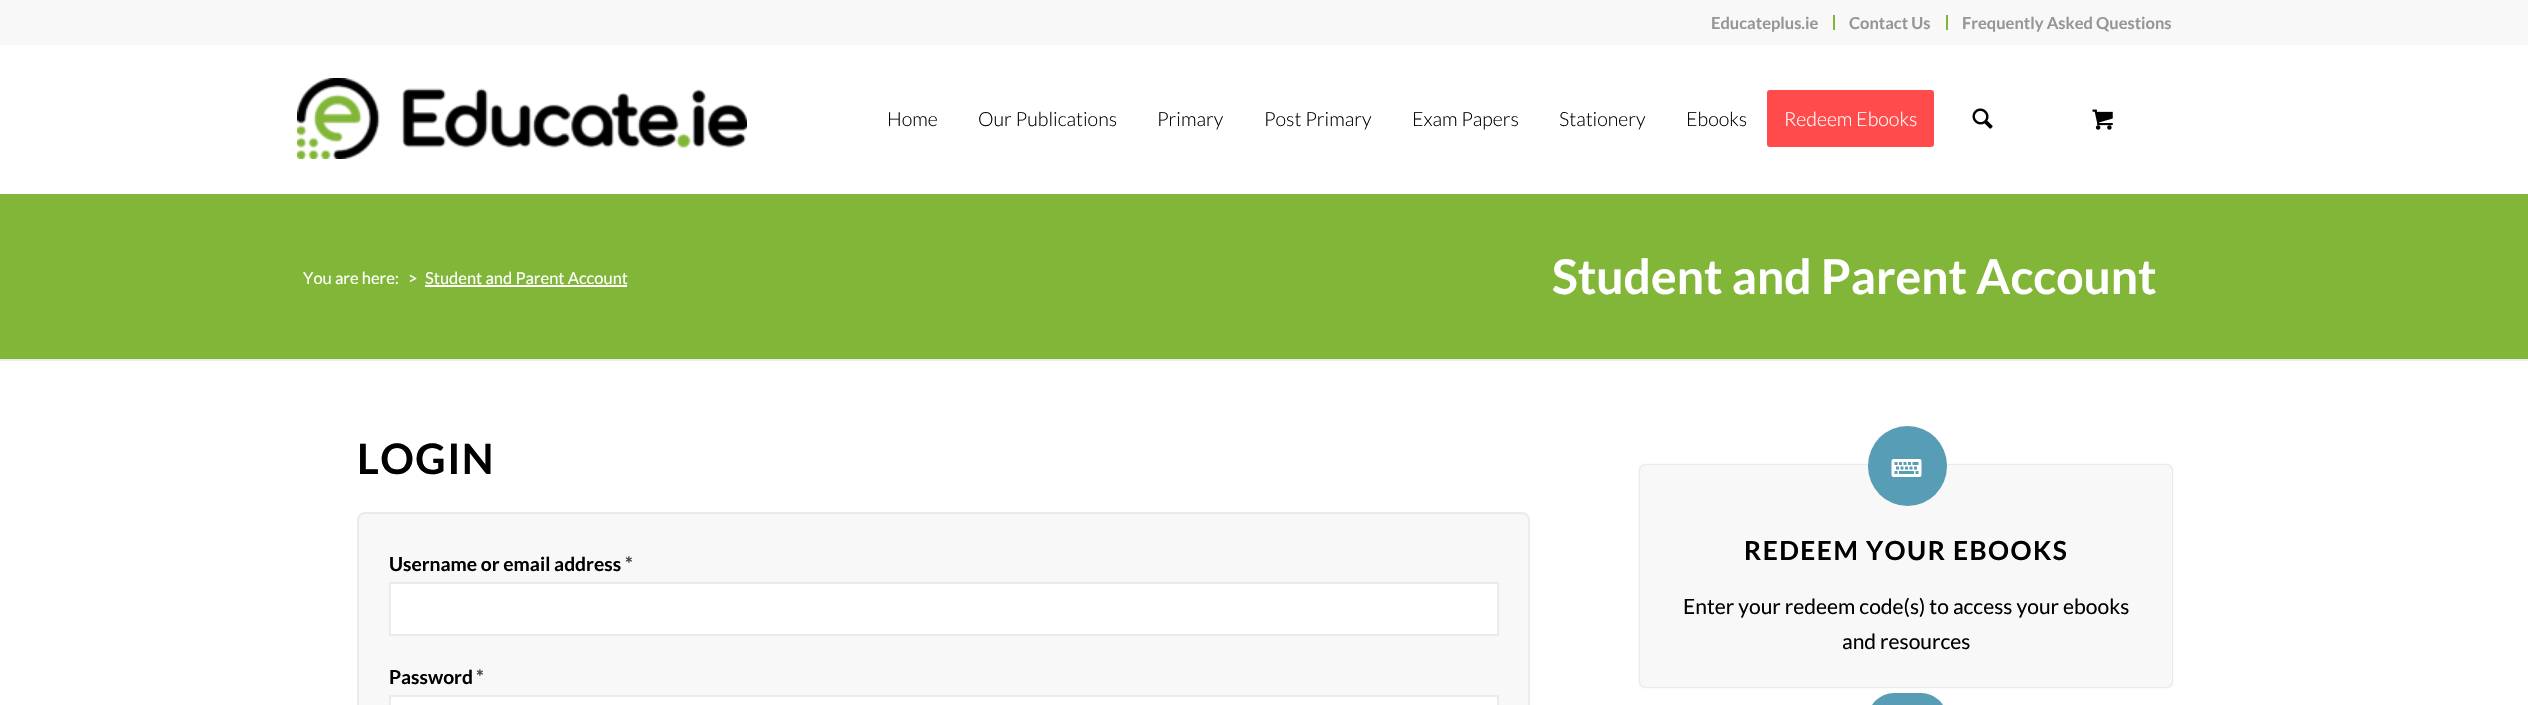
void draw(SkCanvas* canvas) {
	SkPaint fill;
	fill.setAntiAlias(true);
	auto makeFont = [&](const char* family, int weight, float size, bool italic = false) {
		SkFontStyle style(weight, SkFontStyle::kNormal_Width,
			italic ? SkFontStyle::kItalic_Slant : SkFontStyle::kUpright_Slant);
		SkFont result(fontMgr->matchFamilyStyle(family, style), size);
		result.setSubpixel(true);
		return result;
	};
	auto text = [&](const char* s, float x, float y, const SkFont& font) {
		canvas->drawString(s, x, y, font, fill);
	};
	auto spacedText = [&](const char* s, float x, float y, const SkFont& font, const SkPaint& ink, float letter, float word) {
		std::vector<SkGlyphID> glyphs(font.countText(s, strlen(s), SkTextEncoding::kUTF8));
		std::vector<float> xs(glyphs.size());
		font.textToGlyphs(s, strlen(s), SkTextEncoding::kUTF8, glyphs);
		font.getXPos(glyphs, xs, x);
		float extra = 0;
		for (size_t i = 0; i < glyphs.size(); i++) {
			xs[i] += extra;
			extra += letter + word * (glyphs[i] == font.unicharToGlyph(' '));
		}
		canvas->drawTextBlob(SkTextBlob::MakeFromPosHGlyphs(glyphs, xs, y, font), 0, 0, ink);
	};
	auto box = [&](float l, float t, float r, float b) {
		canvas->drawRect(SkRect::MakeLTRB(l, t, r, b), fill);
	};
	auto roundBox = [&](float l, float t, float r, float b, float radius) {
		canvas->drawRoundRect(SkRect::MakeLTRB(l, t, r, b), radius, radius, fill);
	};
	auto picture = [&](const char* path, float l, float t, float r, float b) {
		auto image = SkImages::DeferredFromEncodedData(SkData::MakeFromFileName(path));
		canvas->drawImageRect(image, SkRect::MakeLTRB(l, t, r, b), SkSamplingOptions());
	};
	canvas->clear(0xFFFFFFFF);
	fill.setColor(0xFFF8F8F8);
	box(0, 0, 2528, 45);
	fill.setColor(0xFF82B638);
	box(1833, 15, 1835, 30);
	box(1946, 15, 1948, 30);
	picture("image0.png", 297, 78, 747, 159);
	fill.setColor(0xFFFF4B4C);
	canvas->drawRoundRect(SkRect::MakeLTRB(1768.5f, 91.5f, 1932.5f, 145.5f), 1.5f, 1.5f, fill);
	fill.setStyle(SkPaint::kStroke_Style);
	fill.setStrokeWidth(3);
	canvas->drawRoundRect(SkRect::MakeLTRB(1768.5f, 91.5f, 1932.5f, 145.5f), 1.5f, 1.5f, fill);
	picture("image1.png", 1972, 108, 1993, 129);
	picture("image2.png", 2092, 109, 2113, 130);
	fill.setStyle(SkPaint::kFill_Style);
	fill.setColor(0xFF81B638);
	box(0, 194, 2528, 359);
	fill.setColor(0xFFFFFFFF);
	box(425, 285, 627, 287);
	fill.setColor(0xFFEBEBEB);
	box(0, 359, 2528, 361);
	fill.setColor(0xFFF8F8F8);
	canvas->drawRoundRect(SkRect::MakeLTRB(358, 513, 1529, 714), 7, 7, fill);
	fill.setStyle(SkPaint::kStroke_Style);
	fill.setStrokeWidth(2);
	fill.setColor(0xFFEBEBEB);
	canvas->drawRoundRect(SkRect::MakeLTRB(358, 513, 1529, 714), 7, 7, fill);
	fill.setStyle(SkPaint::kFill_Style);
	fill.setColor(0xFFFFFFFF);
	canvas->drawRect(SkRect::MakeLTRB(390, 583, 1498, 635), fill);
	fill.setStyle(SkPaint::kStroke_Style);
	fill.setColor(0xFFEBEBEB);
	canvas->drawRect(SkRect::MakeLTRB(390, 583, 1498, 635), fill);
	fill.setStyle(SkPaint::kFill_Style);
	fill.setColor(0xFFFFFFFF);
	canvas->drawRect(SkRect::MakeLTRB(390, 696, 1498, 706), fill);
	fill.setStyle(SkPaint::kStroke_Style);
	fill.setColor(0xFFEBEBEB);
	canvas->drawRect(SkRect::MakeLTRB(390, 696, 1498, 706), fill);
	fill.setStyle(SkPaint::kFill_Style);
	fill.setColor(0x4D000000);
	fill.setMaskFilter(SkMaskFilter::MakeBlur(kNormal_SkBlurStyle, 1));
	canvas->drawRoundRect(SkRect::MakeLTRB(1640, 465, 2172, 687), 5, 5, fill);
	fill.setMaskFilter(nullptr);
	fill.setColor(0xFFF8F8F8);
	roundBox(1640, 465, 2172, 687, 5);
	fill.setColor(0xFF579DB6);
	roundBox(1868, 426, 1947, 506, 39.5f);
	picture("image3.png", 1891, 459, 1922, 477);
	roundBox(1868, 693, 1947, 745, 39.5f);
	auto font1 = makeFont("Lato", 700, 16.5f);
	fill.setColor(0xFF969696);
	text("Educateplus.ie", 1711, 29, font1);
	text("Contact Us", 1849, 29, font1);
	text("Frequently Asked Questions", 1962, 29, font1);
	auto font2 = makeFont("Lato", 300, 19.5f);
	fill.setColor(0xFF000000);
	text("Home", 887, 126, font2);
	text("Our Publications", 978, 126, font2);
	text("Primary", 1157, 126, font2);
	text("Post Primary", 1264, 126, font2);
	text("Exam Papers", 1412, 126, font2);
	text("Stationery", 1559, 126, font2);
	text("Ebooks", 1686, 126, font2);
	fill.setColor(0xFFFFFFFF);
	text("Redeem Ebooks", 1784, 126, font2);
	auto font3 = makeFont("Lato", 400, 16.5f);
	text("You are here:", 303, 284, font3);
	text(">", 408, 284, font3);
	text("Student and Parent Account", 425, 284, font3);
	auto font4 = makeFont("Lato", 700, 48);
	text("Student and Parent Account", 1552, 294, font4);
	auto font5 = makeFont("Lato", 700, 42);
	fill.setColor(0xFF000000);
	spacedText("LOGIN", 357, 474, font5, fill, 1.5f, 0);
	auto font6 = makeFont("Lato", 700, 19.25f);
	text("Username or email address", 389, 571, font6);
	auto font7 = makeFont("Lato", 700, 19.5f);
	fill.setColor(0xFF444444);
	text("*", 625, 571, font7);
	fill.setColor(0xFF000000);
	text("Password", 389, 684, font6);
	fill.setColor(0xFF444444);
	text("*", 476, 684, font7);
	auto font8 = makeFont("Lato", 700, 26.25f);
	fill.setColor(0xFF000000);
	spacedText("REDEEM YOUR EBOOKS", 1744, 560, font8, fill, 1.5f, 0);
	auto font9 = makeFont("Lato", 400, 21);
	text("Enter your redeem code(s) to access your ebooks", 1683, 614, font9);
	text("and resources", 1842, 649, font9);
}
